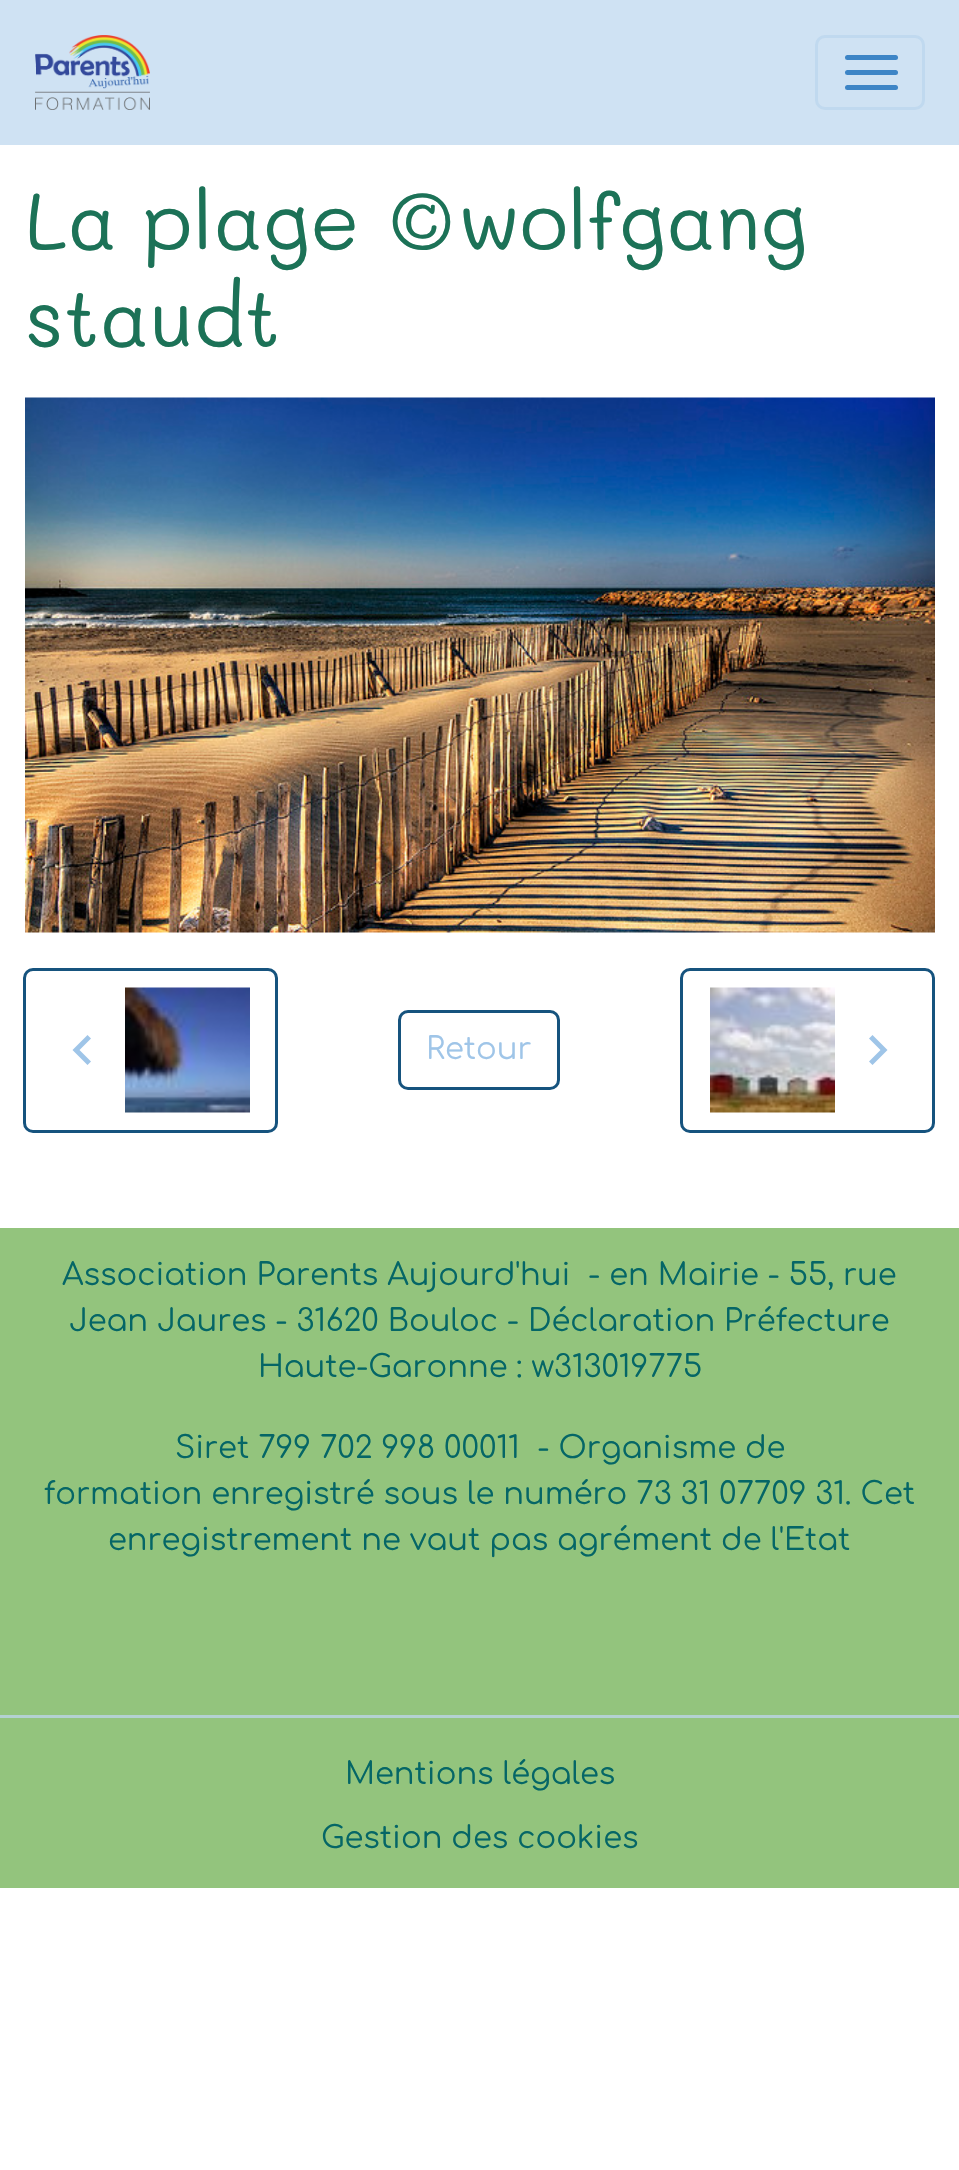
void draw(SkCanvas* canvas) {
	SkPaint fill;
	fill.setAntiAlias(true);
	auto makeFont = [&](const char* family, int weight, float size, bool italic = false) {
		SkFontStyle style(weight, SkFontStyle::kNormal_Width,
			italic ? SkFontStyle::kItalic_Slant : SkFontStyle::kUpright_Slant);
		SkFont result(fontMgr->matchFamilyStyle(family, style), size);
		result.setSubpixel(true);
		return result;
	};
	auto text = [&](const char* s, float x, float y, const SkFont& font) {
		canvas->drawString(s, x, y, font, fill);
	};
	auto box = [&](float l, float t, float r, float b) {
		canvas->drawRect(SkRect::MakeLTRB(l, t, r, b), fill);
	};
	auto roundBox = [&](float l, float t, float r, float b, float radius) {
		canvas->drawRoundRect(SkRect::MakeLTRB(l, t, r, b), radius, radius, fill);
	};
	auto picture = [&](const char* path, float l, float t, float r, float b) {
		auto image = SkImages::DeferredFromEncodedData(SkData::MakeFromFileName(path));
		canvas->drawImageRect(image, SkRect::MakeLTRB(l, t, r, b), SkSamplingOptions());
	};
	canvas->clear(0xFFFFFFFF);
	fill.setColor(0xFFCFE2F3);
	box(0, 0, 959, 145);
	picture("image0.png", 35, 35, 150, 110);
	fill.setStyle(SkPaint::kStroke_Style);
	fill.setStrokeWidth(3);
	fill.setColor(0xFFC0D9EF);
	canvas->drawRoundRect(SkRect::MakeLTRB(816.5f, 36.5f, 923.5f, 108.5f), 8.5f, 8.5f, fill);
	fill.setStyle(SkPaint::kFill_Style);
	fill.setColor(0xFF3D85C6);
	roundBox(845, 55, 898, 60, 2.5f);
	roundBox(845, 70, 898, 75, 2.5f);
	roundBox(845, 85, 898, 90, 2.5f);
	picture("image1.png", 25, 397, 935, 933);
	fill.setStyle(SkPaint::kStroke_Style);
	fill.setColor(0xFF16537E);
	canvas->drawRoundRect(SkRect::MakeLTRB(24.5f, 969.5f, 276.5f, 1131.5f), 8.5f, 8.5f, fill);
	fill.setStyle(SkPaint::kFill_Style);
	fill.setColor(0xFF9FC5E8);
	canvas->drawPath(SkPathBuilder().moveTo(91, 1038.5f).lineTo(79.5f, 1050).lineTo(91, 1061.5f).lineTo(87.5f, 1065).lineTo(72.5f, 1050).lineTo(87.5f, 1035).close().detach(), fill);
	picture("image2.png", 125, 987, 250, 1113);
	fill.setStyle(SkPaint::kStroke_Style);
	fill.setColor(0xFF16537E);
	canvas->drawRoundRect(SkRect::MakeLTRB(399.5f, 1011.5f, 558.5f, 1088.5f), 8.5f, 8.5f, fill);
	canvas->drawRoundRect(SkRect::MakeLTRB(681.5f, 969.5f, 933.5f, 1131.5f), 8.5f, 8.5f, fill);
	picture("image3.png", 710, 987, 835, 1113);
	fill.setStyle(SkPaint::kFill_Style);
	fill.setColor(0xFF9FC5E8);
	canvas->drawPath(SkPathBuilder().moveTo(872.5f, 1035).lineTo(887.5f, 1050).lineTo(872.5f, 1065).lineTo(869, 1061.5f).lineTo(880.5f, 1050).lineTo(869, 1038.5f).close().detach(), fill);
	fill.setColor(0xFF93C47D);
	box(0, 1228, 959, 1888);
	fill.setColor(0xFFB4D1D1);
	box(0, 1715, 959, 1718);
	auto font1 = makeFont("Mali", 400, 80.5f);
	fill.setColor(0xFF1C7257);
	text("La plage ©wolfgang", 25, 250, font1);
	text("staudt", 25, 347, font1);
	auto font2 = makeFont("Comfortaa", 400, 30.6f);
	fill.setColor(0xFF9FC5E8);
	text("Retour", 426, 1059, font2);
	fill.setColor(0xFF056666);
	text("Association Parents Aujourd'hui  - en Mairie - 55, rue", 62, 1285, font2);
	text("Jean Jaures - 31620 Bouloc - Déclaration Préfecture", 69, 1331, font2);
	text("Haute-Garonne : w313019775", 258, 1377, font2);
	text("Siret 799 702 998 00011  - Organisme de", 175, 1458, font2);
	text("formation enregistré sous le numéro 73 31 07709 31. Cet", 44, 1504, font2);
	text("enregistrement ne vaut pas agrément de l'Etat", 108, 1550, font2);
	text("Mentions légales", 345, 1784, font2);
	text("Gestion des cookies", 321, 1848, font2);
}
